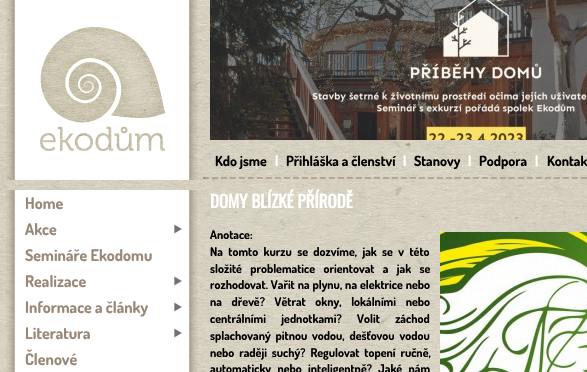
void draw(SkCanvas* canvas) {
	SkPaint fill;
	fill.setAntiAlias(true);
	auto makeFont = [&](const char* family, int weight, float size, bool italic = false) {
		SkFontStyle style(weight, SkFontStyle::kNormal_Width,
			italic ? SkFontStyle::kItalic_Slant : SkFontStyle::kUpright_Slant);
		SkFont result(fontMgr->matchFamilyStyle(family, style), size);
		result.setSubpixel(true);
		return result;
	};
	auto text = [&](const char* s, float x, float y, const SkFont& font) {
		canvas->drawString(s, x, y, font, fill);
	};
	auto spacedText = [&](const char* s, float x, float y, const SkFont& font, const SkPaint& ink, float letter, float word) {
		std::vector<SkGlyphID> glyphs(font.countText(s, strlen(s), SkTextEncoding::kUTF8));
		std::vector<float> xs(glyphs.size());
		font.textToGlyphs(s, strlen(s), SkTextEncoding::kUTF8, glyphs);
		font.getXPos(glyphs, xs, x);
		float extra = 0;
		for (size_t i = 0; i < glyphs.size(); i++) {
			xs[i] += extra;
			extra += letter + word * (glyphs[i] == font.unicharToGlyph(' '));
		}
		canvas->drawTextBlob(SkTextBlob::MakeFromPosHGlyphs(glyphs, xs, y, font), 0, 0, ink);
	};
	auto picture = [&](const char* path, float l, float t, float r, float b) {
		auto image = SkImages::DeferredFromEncodedData(SkData::MakeFromFileName(path));
		canvas->drawImageRect(image, SkRect::MakeLTRB(l, t, r, b), SkSamplingOptions());
	};
	canvas->clear(0xFFFFFFFF);
	picture("image0.png", 0, 0, 587, 372);
	picture("image1.png", 200, 176, 587, 179);
	picture("image3.png", 6, 0, 198, 180);
	picture("image2.png", 40, 27, 166, 151);
	picture("image4.png", 210, 0, 587, 140);
	picture("image5.png", 6, 190, 198, 372);
	picture("image6.png", 174, 224, 182, 234);
	picture("image6.png", 174, 276, 182, 286);
	picture("image6.png", 174, 302, 182, 312);
	picture("image6.png", 174, 328, 182, 338);
	picture("image7.png", 440, 232, 587, 372);
	auto font1 = makeFont("Dosis", 700, 14);
	fill.setColor(0xFF000000);
	text("Kdo jsme", 215, 166, font1);
	fill.setColor(0xFFFFFFFF);
	text("|", 275, 166, font1);
	fill.setColor(0xFF000000);
	text("Přihláška a členství", 286, 166, font1);
	fill.setColor(0xFFFFFFFF);
	text("|", 403, 166, font1);
	fill.setColor(0xFF000000);
	text("Stanovy", 414, 166, font1);
	fill.setColor(0xFFFFFFFF);
	text("|", 468, 166, font1);
	fill.setColor(0xFF000000);
	text("Podpora", 479, 166, font1);
	fill.setColor(0xFFFFFFFF);
	text("|", 535, 166, font1);
	fill.setColor(0xFF000000);
	text("Kontak", 547, 166, font1);
	auto font2 = makeFont("Dosis", 700, 16);
	fill.setColor(0xFF998877);
	text("Home", 25, 209, font2);
	text("Akce", 25, 235, font2);
	text("Semináře Ekodomu", 25, 261, font2);
	text("Realizace", 25, 287, font2);
	text("Informace a články", 25, 313, font2);
	text("Literatura", 25, 339, font2);
	text("Členové", 25, 365, font2);
	auto font3 = makeFont("Oswald", 700, 17);
	fill.setColor(0xFFFFFFFF);
	text("DOMY BLÍZKÉ PŘÍRODĚ", 210, 208, font3);
	auto font4 = makeFont("Dosis", 700, 12);
	fill.setColor(0xFF000000);
	text("Anotace:", 210, 239, font4);
	spacedText("Na tomto kurzu se dozvíme, jak se v této", 210, 256, font4, fill, 0, 3);
	spacedText("složité problematice orientovat a jak se", 210, 273, font4, fill, 0, 6);
	spacedText("rozhodovat. Vařit na plynu, na elektrice nebo", 210, 289, font4, fill, 0, 0.5f);
	spacedText("na dřevě? Větrat okny, lokálními nebo", 210, 306, font4, fill, 0, 7.25f);
	spacedText("centrálními jednotkami? Volit záchod", 210, 323, font4, fill, 0, 13);
	spacedText("splachovaný pitnou vodou, dešťovou vodou", 210, 340, font4, fill, 0, 2.5f);
	spacedText("nebo raději suchý? Regulovat topení ručně,", 210, 357, font4, fill, 0, 2.5f);
	spacedText("automaticky nebo inteligentně? Jaké nám", 210, 373, font4, fill, 0, 4);
}
